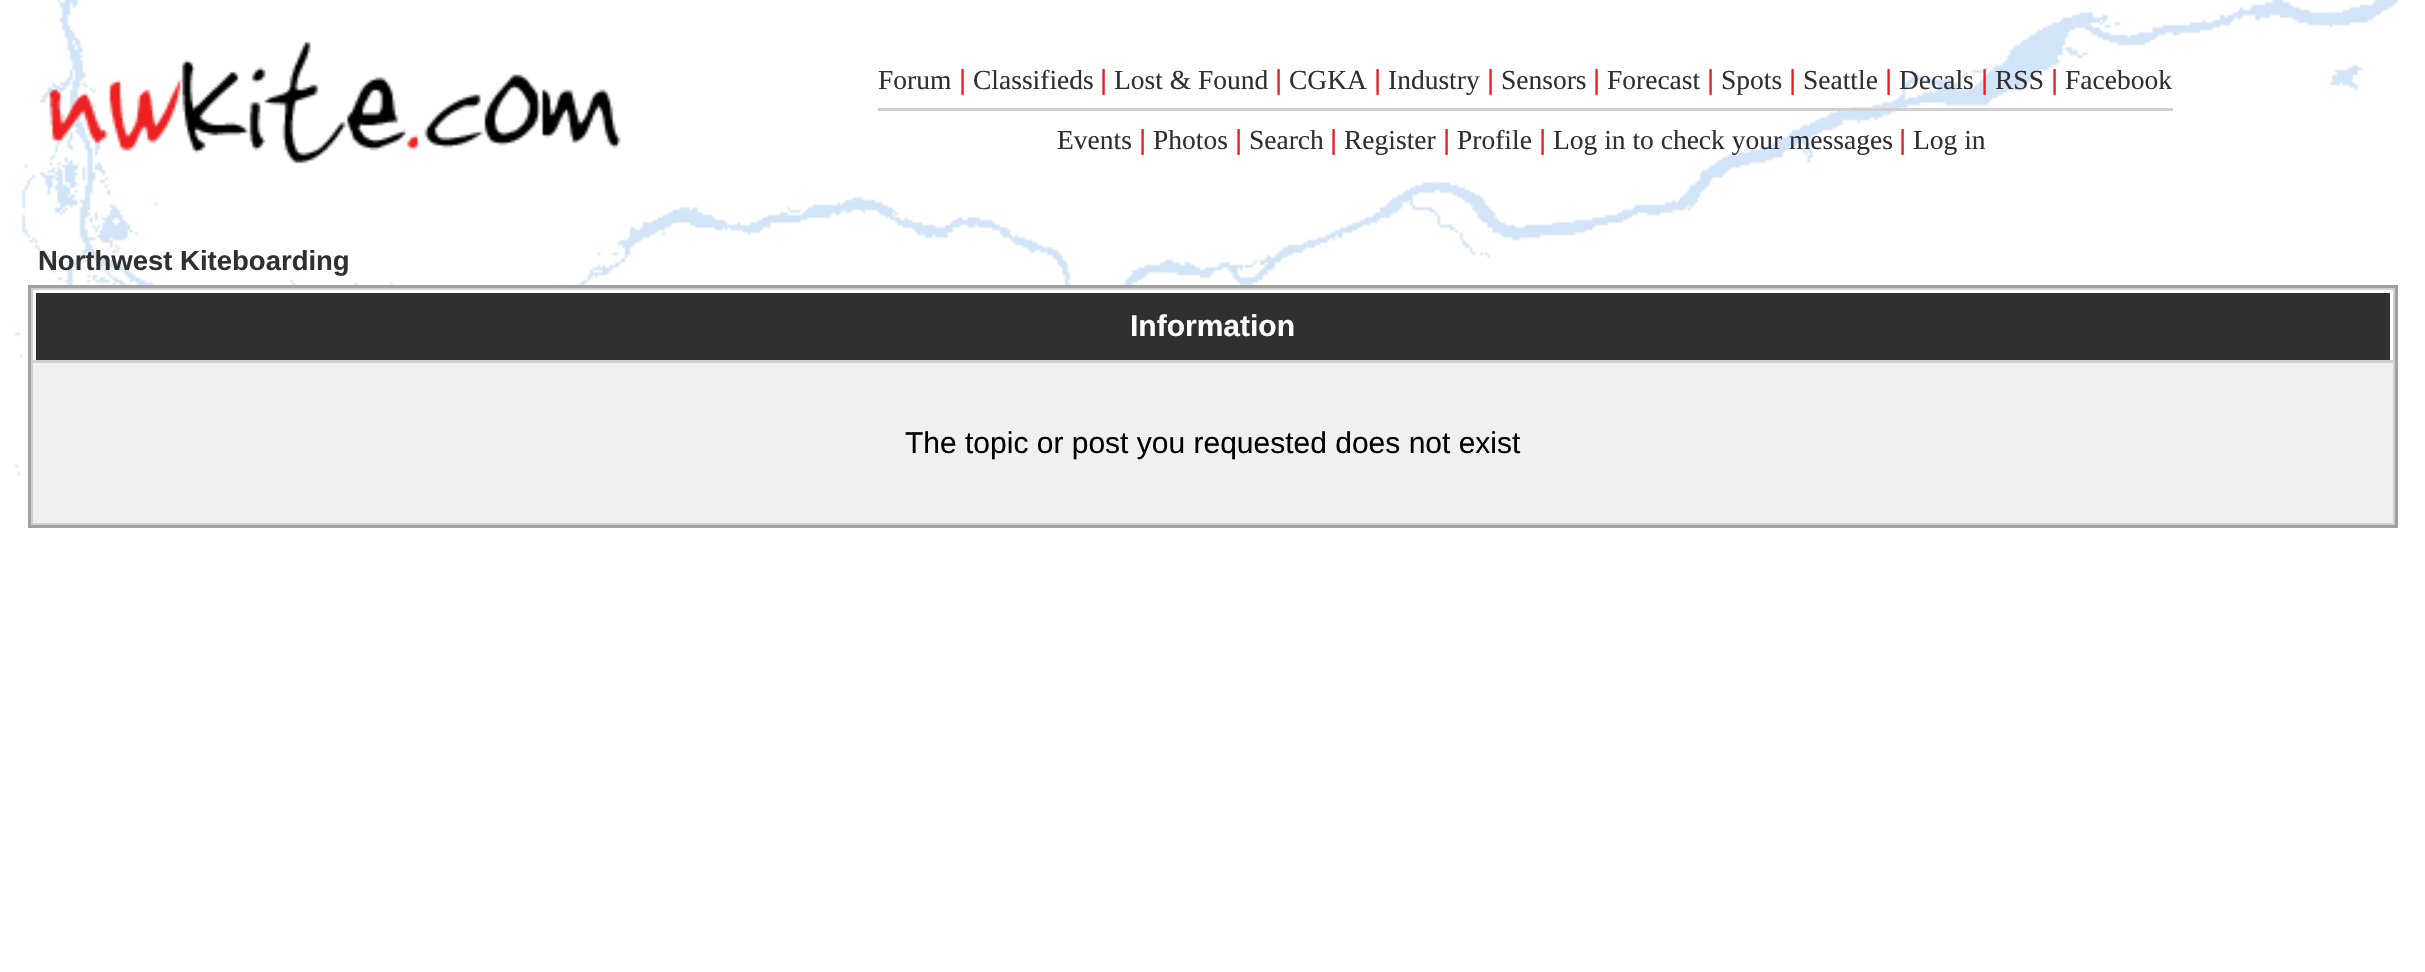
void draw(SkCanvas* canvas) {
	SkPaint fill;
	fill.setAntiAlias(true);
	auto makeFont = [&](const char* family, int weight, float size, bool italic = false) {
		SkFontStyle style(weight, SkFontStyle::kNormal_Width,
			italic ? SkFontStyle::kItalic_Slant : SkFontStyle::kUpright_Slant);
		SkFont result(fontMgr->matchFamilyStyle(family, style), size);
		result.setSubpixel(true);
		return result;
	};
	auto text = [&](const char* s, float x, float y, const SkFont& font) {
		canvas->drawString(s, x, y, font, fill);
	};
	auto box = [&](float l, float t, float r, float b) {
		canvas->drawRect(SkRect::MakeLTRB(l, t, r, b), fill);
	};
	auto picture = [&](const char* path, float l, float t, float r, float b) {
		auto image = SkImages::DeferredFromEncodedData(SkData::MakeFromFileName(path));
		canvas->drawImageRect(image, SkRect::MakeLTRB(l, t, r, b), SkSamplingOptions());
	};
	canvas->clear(0xFFFFFFFF);
	picture("image0.png", 14, 0, 2399, 480);
	picture("image1.png", 49, 41, 621, 164);
	fill.setColor(0xFFD0D0D0);
	box(878, 108, 2173, 111);
	canvas->drawRect(SkRect::MakeLTRB(29.5f, 286.5f, 2396.5f, 526.5f), fill);
	fill.setStyle(SkPaint::kStroke_Style);
	fill.setStrokeWidth(3);
	fill.setColor(0xFFA0A0A0);
	canvas->drawRect(SkRect::MakeLTRB(29.5f, 286.5f, 2396.5f, 526.5f), fill);
	fill.setStyle(SkPaint::kFill_Style);
	fill.setColor(0xFF303030);
	box(36, 293, 2390, 360);
	fill.setColor(0xFFFFFFFF);
	box(33, 290, 2393, 293);
	box(2390, 290, 2393, 360);
	box(33, 290, 36, 360);
	fill.setColor(0xFFF0F0F0);
	box(33, 363, 2393, 523);
	auto font1 = makeFont("Liberation Serif", 400, 27.5f);
	fill.setColor(0xFF303030);
	text("Forum", 878, 89, font1);
	auto font2 = makeFont("Liberation Sans", 400, 27.5f);
	fill.setColor(0xFFED1C24);
	text("|", 959, 89, font2);
	fill.setColor(0xFF303030);
	text("Classifieds", 973, 89, font1);
	fill.setColor(0xFFED1C24);
	text("|", 1100, 89, font2);
	fill.setColor(0xFF303030);
	text("Lost & Found", 1114, 89, font1);
	fill.setColor(0xFFED1C24);
	text("|", 1275, 89, font2);
	fill.setColor(0xFF303030);
	text("CGKA", 1289, 89, font1);
	fill.setColor(0xFFED1C24);
	text("|", 1374, 89, font2);
	fill.setColor(0xFF303030);
	text("Industry", 1388, 89, font1);
	fill.setColor(0xFFED1C24);
	text("|", 1487, 89, font2);
	fill.setColor(0xFF303030);
	text("Sensors", 1501, 89, font1);
	fill.setColor(0xFFED1C24);
	text("|", 1593, 89, font2);
	fill.setColor(0xFF303030);
	text("Forecast", 1607, 89, font1);
	fill.setColor(0xFFED1C24);
	text("|", 1707, 89, font2);
	fill.setColor(0xFF303030);
	text("Spots", 1721, 89, font1);
	fill.setColor(0xFFED1C24);
	text("|", 1789, 89, font2);
	fill.setColor(0xFF303030);
	text("Seattle", 1803, 89, font1);
	fill.setColor(0xFFED1C24);
	text("|", 1885, 89, font2);
	fill.setColor(0xFF303030);
	text("Decals", 1899, 89, font1);
	fill.setColor(0xFFED1C24);
	text("|", 1981, 89, font2);
	fill.setColor(0xFF303030);
	text("RSS", 1995, 89, font1);
	fill.setColor(0xFFED1C24);
	text("|", 2051, 89, font2);
	fill.setColor(0xFF303030);
	text("Facebook", 2065, 89, font1);
	text("Events", 1057, 149, font1);
	fill.setColor(0xFFED1C24);
	text("|", 1139, 149, font2);
	fill.setColor(0xFF303030);
	text("Photos", 1153, 149, font1);
	fill.setColor(0xFFED1C24);
	text("|", 1235, 149, font2);
	fill.setColor(0xFF303030);
	text("Search", 1249, 149, font1);
	fill.setColor(0xFFED1C24);
	text("|", 1330, 149, font2);
	fill.setColor(0xFF303030);
	text("Register", 1344, 149, font1);
	fill.setColor(0xFFED1C24);
	text("|", 1443, 149, font2);
	fill.setColor(0xFF303030);
	text("Profile", 1457, 149, font1);
	fill.setColor(0xFFED1C24);
	text("|", 1539, 149, font2);
	fill.setColor(0xFF303030);
	text("Log in to check your messages", 1553, 149, font1);
	fill.setColor(0xFFED1C24);
	text("|", 1899, 149, font2);
	fill.setColor(0xFF303030);
	text("Log in", 1913, 149, font1);
	auto font3 = makeFont("Liberation Sans", 700, 27.5f);
	text("Northwest Kiteboarding", 38, 270, font3);
	auto font4 = makeFont("Liberation Sans", 700, 30);
	fill.setColor(0xFFFFFFFF);
	text("Information", 1130, 336, font4);
	auto font5 = makeFont("Liberation Sans", 400, 30);
	fill.setColor(0xFF000000);
	text("The topic or post you requested does not exist", 905, 453, font5);
}
